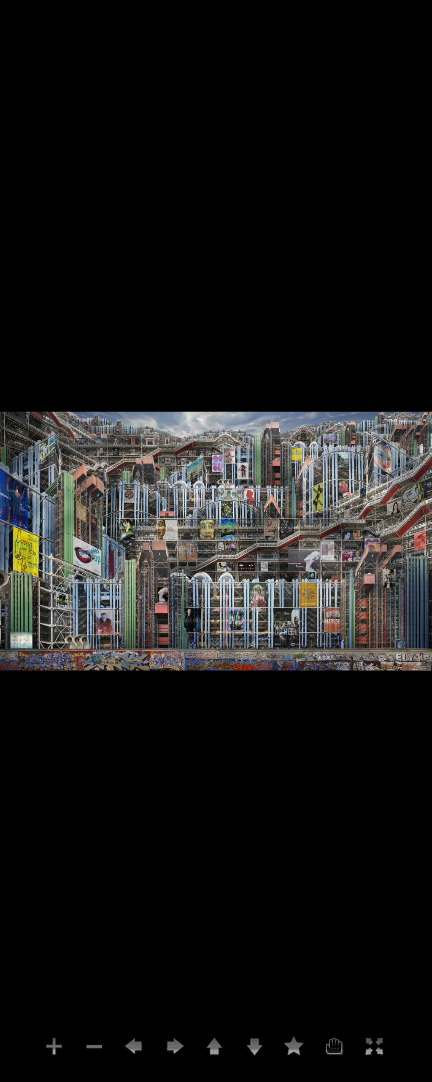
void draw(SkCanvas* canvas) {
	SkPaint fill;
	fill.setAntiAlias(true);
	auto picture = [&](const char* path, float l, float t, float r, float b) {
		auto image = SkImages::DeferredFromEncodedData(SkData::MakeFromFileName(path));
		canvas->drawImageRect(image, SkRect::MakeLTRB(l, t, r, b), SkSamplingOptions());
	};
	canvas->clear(0xFF000000);
	picture("image0.png", 0, 411, 432, 671);
	picture("image1.png", 44, 1036, 64, 1056);
	picture("image2.png", 85, 1044, 104, 1050);
	picture("image3.png", 123, 1037, 143, 1054);
	picture("image4.png", 166, 1038, 185, 1054);
	picture("image5.png", 205, 1037, 223, 1056);
	picture("image6.png", 246, 1038, 265, 1057);
	picture("image7.png", 284, 1036, 304, 1056);
	picture("image8.png", 325, 1037, 344, 1056);
	picture("image9.png", 364, 1037, 384, 1056);
}
